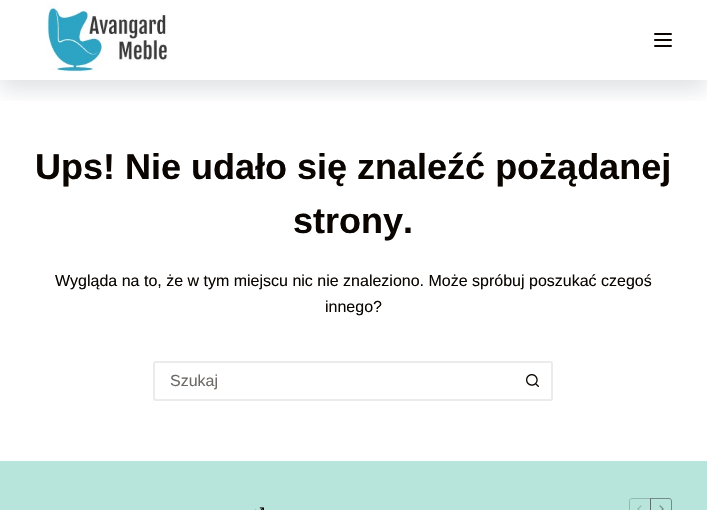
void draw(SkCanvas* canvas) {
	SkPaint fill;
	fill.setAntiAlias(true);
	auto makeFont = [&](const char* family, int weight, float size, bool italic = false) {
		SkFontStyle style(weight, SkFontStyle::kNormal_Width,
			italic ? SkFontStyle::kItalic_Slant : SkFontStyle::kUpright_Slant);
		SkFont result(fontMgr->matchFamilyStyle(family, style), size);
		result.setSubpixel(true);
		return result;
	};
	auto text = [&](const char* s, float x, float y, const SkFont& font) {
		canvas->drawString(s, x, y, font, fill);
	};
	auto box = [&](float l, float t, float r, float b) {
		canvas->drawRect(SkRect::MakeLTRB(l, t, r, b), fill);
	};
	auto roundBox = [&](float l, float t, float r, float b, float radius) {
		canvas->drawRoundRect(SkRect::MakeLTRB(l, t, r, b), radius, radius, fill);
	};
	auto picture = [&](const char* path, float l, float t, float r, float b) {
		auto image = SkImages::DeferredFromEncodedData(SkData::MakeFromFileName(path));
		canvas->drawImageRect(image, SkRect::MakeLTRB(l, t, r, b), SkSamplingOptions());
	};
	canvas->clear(0xFFFFFFFF);
	canvas->save();
	canvas->clipRect(SkRect::MakeLTRB(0, 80, 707, 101));
	fill.setColor(0x262C3E50);
	fill.setMaskFilter(SkMaskFilter::MakeBlur(kNormal_SkBlurStyle, 10));
	canvas->drawRect(SkRect::MakeLTRB(0, 10, 707, 90), fill);
	fill.setMaskFilter(nullptr);
	canvas->restore();
	picture("image0.png", 46, 2, 167, 72);
	fill.setColor(0xFF0A0500);
	roundBox(654, 33, 672, 35, 1);
	roundBox(654, 39, 672, 41, 1);
	roundBox(654, 45, 672, 47, 1);
	fill.setColor(0xFFEBEBEB);
	canvas->drawPath(SkPathBuilder(SkPathFillType::kEvenOdd).moveTo(156, 361).lineTo(513, 361).lineTo(513, 401).lineTo(156, 401).cubicTo(154, 401, 153, 400, 153, 398).lineTo(153, 364).cubicTo(153, 362, 154, 361, 156, 361).close().moveTo(156, 363).lineTo(513, 363).lineTo(513, 399).lineTo(156, 399).lineTo(155, 398).lineTo(155, 364).close().detach(), fill);
	canvas->drawPath(SkPathBuilder(SkPathFillType::kEvenOdd).moveTo(513, 361).lineTo(550, 361).cubicTo(552, 361, 553, 362, 553, 364).lineTo(553, 398).cubicTo(553, 400, 552, 401, 550, 401).lineTo(513, 401).close().moveTo(513, 363).lineTo(550, 363).cubicTo(551, 363, 551, 363, 551, 364).lineTo(551, 398).cubicTo(551, 399, 551, 399, 550, 399).lineTo(513, 399).close().detach(), fill);
	picture("image1.png", 526, 374, 539, 387);
	fill.setColor(0xFFB8E5DB);
	box(0, 461, 707, 510);
	picture("image2.png", 255, 507, 264, 510);
	fill.setStyle(SkPaint::kStroke_Style);
	fill.setStrokeWidth(1);
	fill.setColor(0xFF95B8AF);
	canvas->drawPath(SkPathBuilder().moveTo(632, 498.5f).lineTo(650.5f, 498.5f).lineTo(650.5f, 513.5f).lineTo(632, 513.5f).cubicTo(630.5f, 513.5f, 629.5f, 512.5f, 629.5f, 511).lineTo(629.5f, 501).cubicTo(629.5f, 499.5f, 630.5f, 498.5f, 632, 498.5f).close().detach(), fill);
	picture("image3.png", 637, 505, 642, 510);
	fill.setColor(0x660A0500);
	canvas->drawPath(SkPathBuilder().moveTo(650.5f, 498.5f).lineTo(669, 498.5f).cubicTo(670.5f, 498.5f, 671.5f, 499.5f, 671.5f, 501).lineTo(671.5f, 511).cubicTo(671.5f, 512.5f, 670.5f, 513.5f, 669, 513.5f).lineTo(650.5f, 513.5f).close().detach(), fill);
	picture("image4.png", 659, 505, 664, 510);
	auto font1 = makeFont("Liberation Sans", 700, 36);
	fill.setStyle(SkPaint::kFill_Style);
	fill.setColor(0xFF0A0500);
	text("Ups! Nie udało się znaleźć pożądanej", 35, 179, font1);
	text("strony.", 293, 233, font1);
	auto font2 = makeFont("Liberation Sans", 400, 16);
	text("Wygląda na to, że w tym miejscu nic nie znaleziono. Może spróbuj poszukać czegoś", 55, 286, font2);
	text("innego?", 325, 312, font2);
	fill.setColor(0xFF6C6966);
	text("Szukaj", 170, 386, font2);
}
